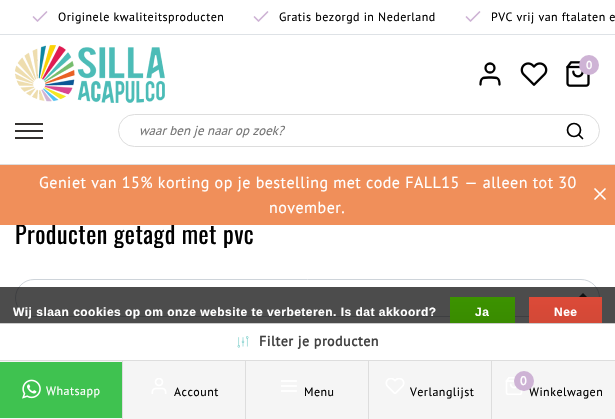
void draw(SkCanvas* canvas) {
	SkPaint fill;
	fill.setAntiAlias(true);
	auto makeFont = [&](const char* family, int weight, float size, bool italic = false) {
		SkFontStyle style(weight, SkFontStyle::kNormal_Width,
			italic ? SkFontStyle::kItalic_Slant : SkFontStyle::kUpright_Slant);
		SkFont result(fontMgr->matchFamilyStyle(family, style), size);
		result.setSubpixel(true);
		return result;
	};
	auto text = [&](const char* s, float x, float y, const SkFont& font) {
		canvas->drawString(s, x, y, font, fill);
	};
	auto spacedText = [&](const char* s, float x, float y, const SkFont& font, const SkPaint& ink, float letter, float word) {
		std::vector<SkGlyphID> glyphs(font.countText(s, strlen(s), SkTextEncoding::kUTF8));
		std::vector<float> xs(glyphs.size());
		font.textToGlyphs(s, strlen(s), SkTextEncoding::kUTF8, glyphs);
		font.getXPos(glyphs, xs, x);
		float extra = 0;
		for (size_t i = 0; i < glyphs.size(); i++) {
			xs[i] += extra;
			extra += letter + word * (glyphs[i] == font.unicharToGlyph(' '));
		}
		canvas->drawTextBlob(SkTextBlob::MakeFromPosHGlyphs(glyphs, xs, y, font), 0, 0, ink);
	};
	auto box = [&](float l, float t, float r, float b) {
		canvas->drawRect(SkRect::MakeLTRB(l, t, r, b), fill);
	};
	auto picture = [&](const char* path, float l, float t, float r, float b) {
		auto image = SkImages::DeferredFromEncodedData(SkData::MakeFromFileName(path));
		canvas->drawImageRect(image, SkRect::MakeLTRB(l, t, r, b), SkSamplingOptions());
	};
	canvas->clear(0xFFFFFFFF);
	fill.setColor(0xFFDDDDDD);
	box(0, 164, 615, 165);
	fill.setColor(0xFFDEE2E6);
	box(0, 34, 615, 35);
	fill.setStyle(SkPaint::kStroke_Style);
	fill.setStrokeWidth(1.7f);
	fill.setStrokeCap(SkPaint::kRound_Cap);
	fill.setStrokeJoin(SkPaint::kRound_Join);
	fill.setColor(0xFFCEB3D5);
	canvas->drawPath(SkPathBuilder().moveTo(46.5f, 12).lineTo(37.5f, 21).lineTo(33.5f, 17).detach(), fill);
	canvas->drawPath(SkPathBuilder().moveTo(267.5f, 12).lineTo(258.5f, 21).lineTo(254.5f, 17).detach(), fill);
	canvas->drawPath(SkPathBuilder().moveTo(479.5f, 12).lineTo(470.5f, 21).lineTo(466.5f, 17).detach(), fill);
	picture("image0.png", 15, 45, 165, 103);
	fill.setStrokeWidth(2.3f);
	fill.setStrokeCap(SkPaint::kButt_Cap);
	fill.setStrokeJoin(SkPaint::kMiter_Join);
	fill.setColor(0xFF000000);
	canvas->drawCircle(490, 68, 4.5f, fill);
	fill.setStrokeCap(SkPaint::kRound_Cap);
	fill.setStrokeJoin(SkPaint::kRound_Join);
	canvas->drawPath(SkPathBuilder().moveTo(499.5f, 84.5f).cubicTo(499.5f, 77, 496.5f, 77.5f, 490, 77.5f).cubicTo(483.5f, 77.5f, 480.5f, 77, 480.5f, 84.5f).detach(), fill);
	picture("image1.png", 520, 62, 548, 86);
	picture("image2.png", 566, 61, 590, 87);
	fill.setStyle(SkPaint::kFill_Style);
	fill.setColor(0xFFCEB3D5);
	canvas->drawCircle(589, 65, 10, fill);
	fill.setColor(0xFF34312F);
	box(15, 123, 43, 125);
	box(15, 130, 43, 132);
	box(15, 137, 43, 139);
	fill.setStyle(SkPaint::kStroke_Style);
	fill.setStrokeWidth(1);
	fill.setStrokeCap(SkPaint::kButt_Cap);
	fill.setStrokeJoin(SkPaint::kMiter_Join);
	fill.setColor(0xFFDDDDDD);
	canvas->drawRoundRect(SkRect::MakeLTRB(118.5f, 114.5f, 599.5f, 146.5f), 16, 16, fill);
	fill.setStrokeWidth(1.7f);
	fill.setColor(0xFF000000);
	canvas->drawCircle(574, 130, 6.5f, fill);
	fill.setStrokeCap(SkPaint::kRound_Cap);
	fill.setStrokeJoin(SkPaint::kRound_Join);
	canvas->drawPath(SkPathBuilder().moveTo(582.5f, 138.5f).lineTo(579, 135).detach(), fill);
	picture("image3.png", 579, 293, 587, 297);
	fill.setStrokeWidth(1);
	fill.setStrokeCap(SkPaint::kButt_Cap);
	fill.setStrokeJoin(SkPaint::kMiter_Join);
	fill.setColor(0xFFCED4DA);
	canvas->drawRoundRect(SkRect::MakeLTRB(15.5f, 279.5f, 599.5f, 316.5f), 18.5f, 18.5f, fill);
	fill.setStyle(SkPaint::kFill_Style);
	fill.setColor(0xB3000000);
	box(0, 287, 615, 323);
	{
		const SkColor colors[] = {0xFF3C9300, 0xFF398A00};
		const float stops[] = {0, 1};
		const SkPoint ends[] = {{483, 297}, {483, 327}};
		fill.setShader(SkGradientShader::MakeLinear(ends, colors, stops, 2, SkTileMode::kClamp));
		fill.setAlpha(255);
	}
	box(450, 297, 515, 323);
	{
		const SkColor colors[] = {0xFFDC4A38, 0xFFD14836};
		const float stops[] = {0, 1};
		const SkPoint ends[] = {{566, 297}, {566, 327}};
		fill.setShader(SkGradientShader::MakeLinear(ends, colors, stops, 2, SkTileMode::kClamp));
		fill.setAlpha(255);
	}
	box(529, 297, 602, 323);
	fill.setShader(nullptr);
	fill.setColor(0xFFCCCCCC);
	box(0, 323, 615, 324);
	picture("image4.png", 237, 336, 249, 348);
	fill.setColor(0xFFF5F5F5);
	box(0, 361, 122, 419);
	fill.setColor(0xFFDDDDDD);
	box(0, 360, 615, 361);
	box(122, 360, 123, 419);
	fill.setColor(0xFF3FC250);
	box(0, 362, 122, 418);
	picture("image5.png", 22, 379, 41, 399);
	fill.setColor(0xFFF5F5F5);
	box(123, 361, 245, 419);
	fill.setColor(0xFFDDDDDD);
	box(245, 360, 246, 419);
	picture("image6.png", 151, 378, 167, 394);
	fill.setColor(0xFFF5F5F5);
	box(246, 361, 368, 419);
	fill.setColor(0xFFDDDDDD);
	box(368, 360, 369, 419);
	picture("image7.png", 281, 380, 297, 392);
	fill.setColor(0xFFF5F5F5);
	box(369, 361, 491, 419);
	fill.setColor(0xFFDDDDDD);
	box(491, 360, 492, 419);
	picture("image8.png", 385, 378, 405, 394);
	fill.setColor(0xFFF5F5F5);
	box(492, 361, 615, 419);
	picture("image9.png", 505, 377, 523, 395);
	auto font1 = makeFont("PT Sans", 400, 12);
	fill.setColor(0xFF000000);
	spacedText("Originele kwaliteitsproducten", 58, 21, font1, fill, 0.48f, 0);
	spacedText("Gratis bezorgd in Nederland", 279, 21, font1, fill, 0.48f, 0);
	spacedText("PVC vrij van ftalaten e", 491, 21, font1, fill, 0.48f, 0);
	auto font2 = makeFont("PT Sans", 700, 11);
	fill.setColor(0xFFFFFFFF);
	spacedText("0", 586, 69, font2, fill, 0.48f, 0);
	auto font3 = makeFont("PT Sans", 400, 13, true);
	fill.setColor(0xFF757575);
	text("waar ben je naar op zoek?", 139, 135, font3);
	canvas->save();
	canvas->clipRect(SkRect::MakeLTRB(15, 219, 600, 248));
	auto font4 = makeFont("Oswald", 400, 24);
	fill.setColor(0xFF000000);
	spacedText("Producten getagd met pvc", 15, 244, font4, fill, 0.48f, 0);
	canvas->restore();
	fill.setColor(0xFFF08F5A);
	box(0, 165, 615, 225);
	fill.setStyle(SkPaint::kStroke_Style);
	fill.setStrokeWidth(1.7f);
	fill.setStrokeCap(SkPaint::kRound_Cap);
	fill.setStrokeJoin(SkPaint::kRound_Join);
	fill.setColor(0xFFFFFFFF);
	canvas->drawPath(SkPathBuilder().moveTo(605, 189).lineTo(595, 199).moveTo(595, 189).lineTo(605, 199).detach(), fill);
	auto font5 = makeFont("PT Sans", 400, 16);
	fill.setStyle(SkPaint::kFill_Style);
	spacedText("november.", 269, 213, font5, fill, 0.48f, 0);
	spacedText("Geniet van 15% korting op je bestelling met code FALL15 — alleen tot 30", 39, 188, font5, fill, 0.48f, 0);
	auto font6 = makeFont("Liberation Sans", 700, 12);
	spacedText("Wij slaan cookies op om onze website te verbeteren. Is dat akkoord?", 13, 316, font6, fill, 0.48f, 0);
	spacedText("Ja", 475, 316, font6, fill, 0.48f, 0);
	spacedText("Nee", 554, 316, font6, fill, 0.48f, 0);
	auto font7 = makeFont("PT Sans", 700, 14);
	fill.setColor(0xFF414141);
	spacedText("Filter je producten", 259, 346, font7, fill, 0.48f, 0);
	fill.setColor(0xFFFFFFFF);
	spacedText("Whatsapp", 46, 395, font1, fill, 0.48f, 0);
	fill.setColor(0xFF000000);
	spacedText("Account", 174, 396, font1, fill, 0.48f, 0);
	spacedText("Menu", 304, 396, font1, fill, 0.48f, 0);
	spacedText("Verlanglijst", 410, 396, font1, fill, 0.48f, 0);
	spacedText("Winkelwagen", 529, 396, font1, fill, 0.48f, 0);
	fill.setColor(0xFFCEB3D5);
	canvas->drawCircle(524, 381, 10, fill);
	auto font8 = makeFont("PT Sans", 700, 12);
	fill.setColor(0xFFFFFFFF);
	spacedText("0", 520, 385, font8, fill, 0.48f, 0);
}
